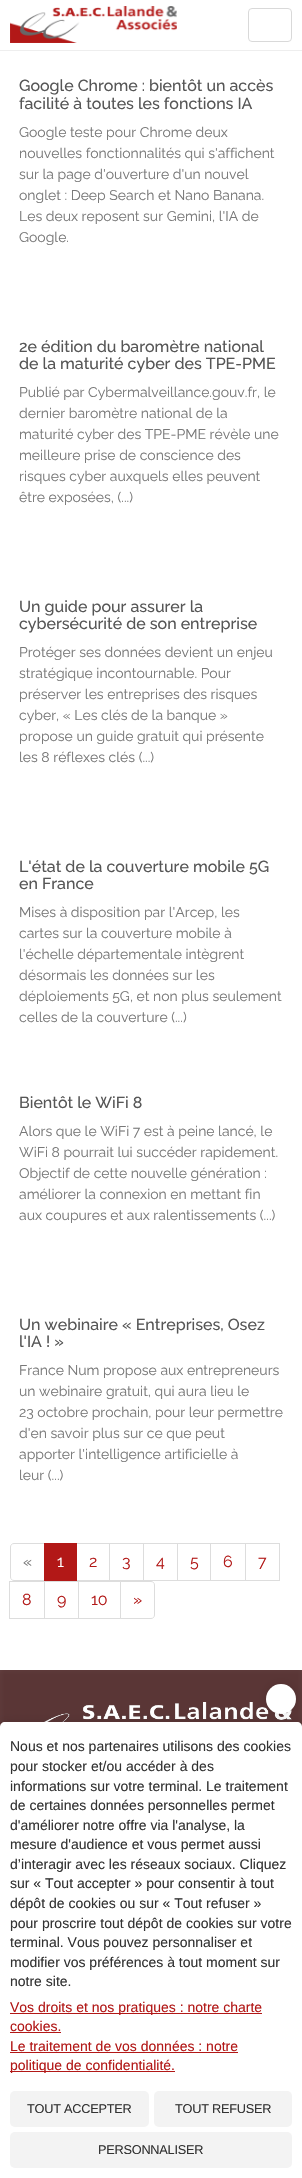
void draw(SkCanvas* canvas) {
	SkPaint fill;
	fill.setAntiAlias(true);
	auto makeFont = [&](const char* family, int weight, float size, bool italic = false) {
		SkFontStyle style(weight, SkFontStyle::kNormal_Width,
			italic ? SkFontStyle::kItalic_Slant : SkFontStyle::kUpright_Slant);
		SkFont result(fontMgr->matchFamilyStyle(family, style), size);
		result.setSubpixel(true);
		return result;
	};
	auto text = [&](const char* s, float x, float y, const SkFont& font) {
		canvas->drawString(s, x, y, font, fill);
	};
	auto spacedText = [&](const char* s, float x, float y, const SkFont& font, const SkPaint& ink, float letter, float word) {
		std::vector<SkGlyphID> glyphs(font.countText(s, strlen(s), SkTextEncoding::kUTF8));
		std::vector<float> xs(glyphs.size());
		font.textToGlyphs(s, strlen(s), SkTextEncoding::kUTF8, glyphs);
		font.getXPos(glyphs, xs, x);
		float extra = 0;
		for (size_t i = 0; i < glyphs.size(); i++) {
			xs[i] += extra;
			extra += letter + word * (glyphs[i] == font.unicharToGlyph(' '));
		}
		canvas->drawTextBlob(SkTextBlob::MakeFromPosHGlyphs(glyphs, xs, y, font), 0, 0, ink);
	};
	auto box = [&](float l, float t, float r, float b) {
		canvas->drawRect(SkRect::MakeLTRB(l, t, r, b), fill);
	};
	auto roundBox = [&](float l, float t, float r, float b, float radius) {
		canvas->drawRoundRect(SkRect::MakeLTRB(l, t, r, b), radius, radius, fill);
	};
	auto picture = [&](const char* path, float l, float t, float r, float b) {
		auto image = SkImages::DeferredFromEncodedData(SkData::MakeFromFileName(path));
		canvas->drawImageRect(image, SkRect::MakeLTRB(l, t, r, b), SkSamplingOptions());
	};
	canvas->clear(0xFFFFFFFF);
	fill.setColor(0xFFEEEEEE);
	box(0, 50, 302, 51);
	picture("image0.png", 10, 6, 177, 43);
	fill.setStyle(SkPaint::kStroke_Style);
	fill.setStrokeWidth(1);
	fill.setColor(0xFFD9D9D9);
	canvas->drawRoundRect(SkRect::MakeLTRB(248.5f, 8.5f, 291.5f, 41.5f), 3.5f, 3.5f, fill);
	fill.setColor(0xFFDDDDDD);
	canvas->drawPath(SkPathBuilder().moveTo(14, 1543.5f).lineTo(44.5f, 1543.5f).lineTo(44.5f, 1580.5f).lineTo(14, 1580.5f).cubicTo(12, 1580.5f, 10.5f, 1579, 10.5f, 1577).lineTo(10.5f, 1547).cubicTo(10.5f, 1545, 12, 1543.5f, 14, 1543.5f).close().detach(), fill);
	canvas->drawRect(SkRect::MakeLTRB(76.5f, 1543.5f, 109.5f, 1580.5f), fill);
	fill.setStyle(SkPaint::kFill_Style);
	fill.setColor(0xFFB21817);
	box(44, 1543, 77, 1581);
	fill.setStyle(SkPaint::kStroke_Style);
	fill.setColor(0xFFDDDDDD);
	canvas->drawRect(SkRect::MakeLTRB(109.5f, 1543.5f, 143.5f, 1580.5f), fill);
	canvas->drawRect(SkRect::MakeLTRB(143.5f, 1543.5f, 177.5f, 1580.5f), fill);
	canvas->drawRect(SkRect::MakeLTRB(177.5f, 1543.5f, 210.5f, 1580.5f), fill);
	canvas->drawRect(SkRect::MakeLTRB(210.5f, 1543.5f, 245.5f, 1580.5f), fill);
	canvas->drawRect(SkRect::MakeLTRB(245.5f, 1543.5f, 279.5f, 1580.5f), fill);
	canvas->drawRect(SkRect::MakeLTRB(9.5f, 1581.5f, 44.5f, 1618.5f), fill);
	canvas->drawRect(SkRect::MakeLTRB(44.5f, 1581.5f, 78.5f, 1618.5f), fill);
	canvas->drawRect(SkRect::MakeLTRB(78.5f, 1581.5f, 120.5f, 1618.5f), fill);
	fill.setStyle(SkPaint::kFill_Style);
	fill.setColor(0xFFFFFFFF);
	canvas->drawPath(SkPathBuilder().moveTo(120.5f, 1581.5f).lineTo(151, 1581.5f).cubicTo(153, 1581.5f, 154.5f, 1583, 154.5f, 1585).lineTo(154.5f, 1615).cubicTo(154.5f, 1617, 153, 1618.5f, 151, 1618.5f).lineTo(120.5f, 1618.5f).close().detach(), fill);
	fill.setStyle(SkPaint::kStroke_Style);
	fill.setColor(0xFFDDDDDD);
	canvas->drawPath(SkPathBuilder().moveTo(120.5f, 1581.5f).lineTo(151, 1581.5f).cubicTo(153, 1581.5f, 154.5f, 1583, 154.5f, 1585).lineTo(154.5f, 1615).cubicTo(154.5f, 1617, 153, 1618.5f, 151, 1618.5f).lineTo(120.5f, 1618.5f).close().detach(), fill);
	canvas->save();
	canvas->clipRect(SkRect::MakeLTRB(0, 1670, 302, 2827));
	fill.setStyle(SkPaint::kFill_Style);
	fill.setColor(0xFF5A3636);
	fill.setMaskFilter(SkMaskFilter::MakeBlur(kNormal_SkBlurStyle, 10));
	canvas->drawRect(SkRect::MakeLTRB(-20, 1650, 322, 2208), fill);
	fill.setMaskFilter(nullptr);
	canvas->restore();
	picture("image1.png", 44, 1702, 292, 1722);
	fill.setColor(0x1A000000);
	fill.setMaskFilter(SkMaskFilter::MakeBlur(kNormal_SkBlurStyle, 5));
	canvas->drawRoundRect(SkRect::MakeLTRB(0, 1722, 302, 2178), 5, 5, fill);
	fill.setMaskFilter(nullptr);
	fill.setColor(0xFFFFFFFF);
	canvas->drawPath(SkPathBuilder().moveTo(5, 1722).lineTo(297, 1722).cubicTo(300, 1722, 302, 1724, 302, 1727).lineTo(302, 2178).lineTo(0, 2178).lineTo(0, 1727).cubicTo(0, 1724, 2, 1722, 5, 1722).close().detach(), fill);
	fill.setColor(0x1A000000);
	fill.setMaskFilter(SkMaskFilter::MakeBlur(kNormal_SkBlurStyle, 5));
	canvas->drawRoundRect(SkRect::MakeLTRB(266, 1684, 296, 1714), 15, 15, fill);
	fill.setMaskFilter(nullptr);
	fill.setColor(0xFFFFFFFF);
	canvas->drawCircle(281, 1699, 15, fill);
	fill.setColor(0xFFB21817);
	box(10, 2013, 262, 2014);
	box(10, 2032, 61, 2033);
	box(10, 2052, 238, 2053);
	box(10, 2071, 175, 2072);
	fill.setColor(0xFFF3F3F3);
	roundBox(10, 2091, 149, 2127, 5);
	roundBox(154, 2091, 292, 2127, 5);
	roundBox(10, 2132, 292, 2168, 5);
	auto font1 = makeFont("Raleway", 100, 16);
	fill.setColor(0xFF565656);
	text("Google Chrome : bientôt un accès", 19, 91, font1);
	text("facilité à toutes les fonctions IA", 19, 109, font1);
	auto font2 = makeFont("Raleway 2", 100, 14);
	fill.setColor(0xFF787878);
	text("Google teste pour Chrome deux", 19, 137, font2);
	text("nouvelles fonctionnalités qui s'affichent", 19, 158, font2);
	text("sur la page d'ouverture d'un nouvel", 19, 179, font2);
	text("onglet : Deep Search et Nano Banana.", 19, 200, font2);
	text("Les deux reposent sur Gemini, l'IA de", 19, 221, font2);
	text("Google.", 19, 242, font2);
	fill.setColor(0xFF565656);
	text("2e édition du baromètre national", 19, 352, font1);
	text("de la maturité cyber des TPE-PME", 19, 369, font1);
	fill.setColor(0xFF787878);
	text("Publié par Cybermalveillance.gouv.fr, le", 19, 397, font2);
	text("dernier baromètre national de la", 19, 418, font2);
	text("maturité cyber des TPE-PME révèle une", 19, 439, font2);
	text("meilleure prise de conscience des", 19, 460, font2);
	text("risques cyber auxquels elles peuvent", 19, 481, font2);
	text("être exposées, (...)", 19, 502, font2);
	fill.setColor(0xFF565656);
	text("Un guide pour assurer la", 19, 612, font1);
	text("cybersécurité de son entreprise", 19, 629, font1);
	fill.setColor(0xFF787878);
	text("Protéger ses données devient un enjeu", 19, 657, font2);
	text("stratégique incontournable. Pour", 19, 678, font2);
	text("préserver les entreprises des risques", 19, 699, font2);
	text("cyber, « Les clés de la banque »", 19, 720, font2);
	text("propose un guide gratuit qui présente", 19, 741, font2);
	text("les 8 réflexes clés (...)", 19, 762, font2);
	fill.setColor(0xFF565656);
	text("L'état de la couverture mobile 5G", 19, 872, font1);
	text("en France", 19, 889, font1);
	fill.setColor(0xFF787878);
	text("Mises à disposition par l'Arcep, les", 19, 917, font2);
	text("cartes sur la couverture mobile à", 19, 938, font2);
	text("l'échelle départementale intègrent", 19, 959, font2);
	text("désormais les données sur les", 19, 980, font2);
	text("déploiements 5G, et non plus seulement", 19, 1001, font2);
	text("celles de la couverture (...)", 19, 1022, font2);
	fill.setColor(0xFF565656);
	text("Bientôt le WiFi 8", 19, 1108, font1);
	fill.setColor(0xFF787878);
	text("Alors que le WiFi 7 est à peine lancé, le", 19, 1136, font2);
	text("WiFi 8 pourrait lui succéder rapidement.", 19, 1157, font2);
	text("Objectif de cette nouvelle génération :", 19, 1178, font2);
	text("améliorer la connexion en mettant fin", 19, 1199, font2);
	text("aux coupures et aux ralentissements (...)", 19, 1220, font2);
	fill.setColor(0xFF565656);
	text("Un webinaire « Entreprises, Osez", 19, 1330, font1);
	text("l'IA ! »", 19, 1347, font1);
	fill.setColor(0xFF787878);
	text("France Num propose aux entrepreneurs", 19, 1375, font2);
	text("un webinaire gratuit, qui aura lieu le", 19, 1396, font2);
	text("23 octobre prochain, pour leur permettre", 19, 1417, font2);
	text("d'en savoir plus sur ce que peut", 19, 1438, font2);
	text("apporter l'intelligence artificielle à", 19, 1459, font2);
	text("leur (...)", 19, 1480, font2);
	auto font3 = makeFont("Raleway 2", 100, 16);
	text("«", 23, 1567, font3);
	fill.setColor(0xFFFFFFFF);
	text("1", 57, 1567, font3);
	fill.setColor(0xFFB21817);
	text("2", 89, 1567, font3);
	text("3", 122, 1567, font3);
	text("4", 156, 1567, font3);
	text("5", 190, 1567, font3);
	text("6", 223, 1567, font3);
	text("7", 258, 1567, font3);
	text("8", 22, 1605, font3);
	text("9", 57, 1605, font3);
	text("10", 91, 1605, font3);
	text("»", 133, 1605, font3);
	auto font4 = makeFont("Liberation Sans", 400, 14);
	fill.setColor(0xFF333333);
	text("Nous et nos partenaires utilisons des cookies", 10, 1751, font4);
	text("pour stocker et/ou accéder à des", 10, 1771, font4);
	text("informations sur votre terminal. Le traitement", 10, 1791, font4);
	text("de certaines données personnelles permet", 10, 1810, font4);
	text("d'améliorer notre offre via l'analyse, la", 10, 1830, font4);
	text("mesure d'audience et vous permet aussi", 10, 1849, font4);
	text("d’interagir avec les réseaux sociaux. Cliquez", 10, 1869, font4);
	text("sur « Tout accepter » pour consentir à tout", 10, 1888, font4);
	text("dépôt de cookies ou sur « Tout refuser »", 10, 1908, font4);
	text("pour proscrire tout dépôt de cookies sur votre", 10, 1928, font4);
	text("terminal. Vous pouvez personnaliser et", 10, 1947, font4);
	text("modifier vos préférences à tout moment sur", 10, 1967, font4);
	text("notre site.", 10, 1986, font4);
	fill.setColor(0xFFB21817);
	text("Vos droits et nos pratiques : notre charte", 10, 2012, font4);
	text("cookies.", 10, 2031, font4);
	text("Le traitement de vos données : notre", 10, 2051, font4);
	text("politique de confidentialité.", 10, 2070, font4);
	auto font5 = makeFont("Liberation Sans", 400, 12.75f);
	fill.setColor(0xFF333333);
	spacedText("TOUT ACCEPTER", 27, 2113, font5, fill, -0.25f, 0);
	spacedText("TOUT REFUSER", 175, 2113, font5, fill, -0.25f, 0);
	spacedText("PERSONNALISER", 98, 2154, font5, fill, -0.25f, 0);
}
